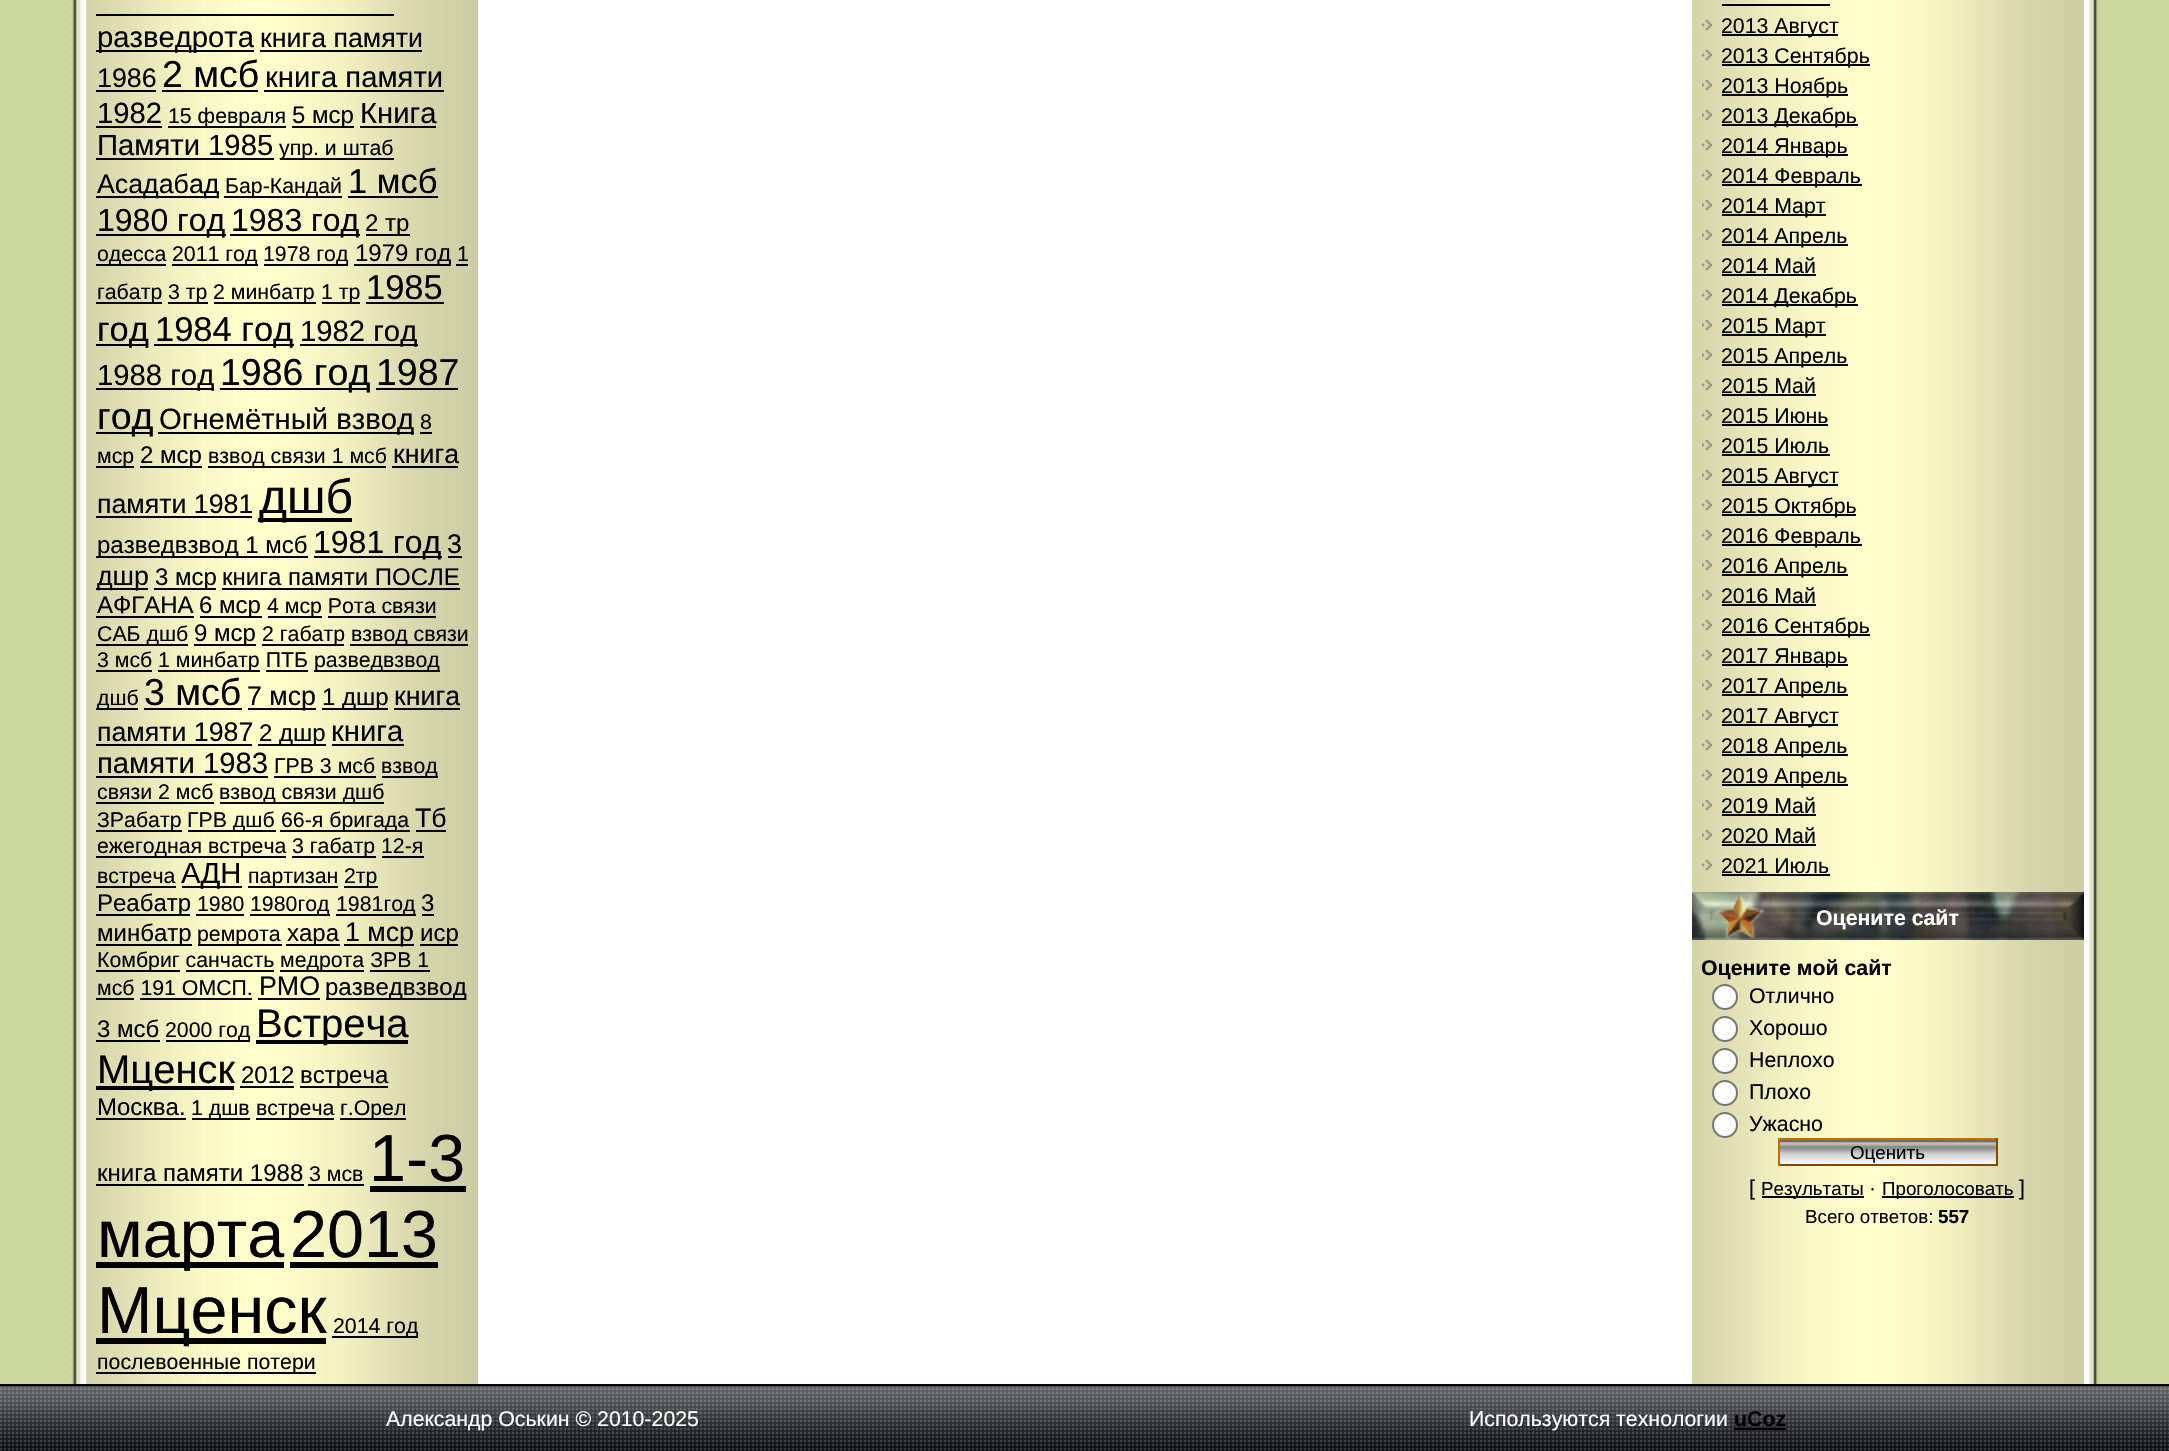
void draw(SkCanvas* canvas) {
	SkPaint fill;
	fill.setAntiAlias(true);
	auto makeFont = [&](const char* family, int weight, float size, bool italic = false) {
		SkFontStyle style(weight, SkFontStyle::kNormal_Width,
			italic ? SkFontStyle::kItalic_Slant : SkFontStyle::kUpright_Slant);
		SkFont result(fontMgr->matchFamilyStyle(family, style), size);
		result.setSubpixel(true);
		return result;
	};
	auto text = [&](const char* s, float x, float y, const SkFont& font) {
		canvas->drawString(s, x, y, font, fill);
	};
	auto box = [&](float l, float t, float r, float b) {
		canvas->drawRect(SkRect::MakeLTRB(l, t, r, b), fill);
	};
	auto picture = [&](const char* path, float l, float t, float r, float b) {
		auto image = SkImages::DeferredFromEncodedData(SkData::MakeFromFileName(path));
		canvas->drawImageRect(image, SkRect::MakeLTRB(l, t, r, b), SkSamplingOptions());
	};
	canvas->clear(0xFFFFFFFF);
	fill.setColor(0xFFCCD79D);
	box(0, 0, 70, 1384);
	picture("image0.png", 70, 0, 86, 1384);
	picture("image1.png", 86, 0, 478, 1384);
	fill.setColor(0xFF000000);
	box(96, 50, 254, 52);
	box(260, 50, 422, 52);
	box(96, 14, 394, 16);
	box(96, 90, 156, 92);
	box(162, 90, 258, 92);
	box(264, 90, 444, 92);
	box(96, 126, 162, 128);
	box(168, 126, 286, 128);
	box(292, 126, 354, 128);
	box(360, 126, 436, 128);
	box(96, 158, 274, 160);
	box(280, 158, 394, 160);
	box(96, 196, 218, 198);
	box(224, 196, 342, 198);
	box(348, 196, 438, 198);
	box(96, 234, 226, 236);
	box(230, 234, 360, 236);
	box(366, 234, 410, 236);
	box(96, 264, 166, 266);
	box(172, 264, 258, 266);
	box(264, 264, 348, 266);
	box(354, 264, 450, 266);
	box(456, 264, 468, 266);
	box(96, 302, 162, 304);
	box(168, 302, 208, 304);
	box(214, 302, 316, 304);
	box(322, 302, 360, 304);
	box(366, 302, 444, 304);
	box(96, 344, 148, 346);
	box(154, 344, 294, 346);
	box(300, 344, 418, 346);
	box(96, 388, 214, 390);
	box(220, 388, 370, 390);
	box(376, 388, 458, 390);
	box(96, 432, 152, 434);
	box(158, 432, 414, 434);
	box(420, 432, 432, 434);
	box(96, 466, 134, 468);
	box(140, 466, 202, 468);
	box(208, 466, 386, 468);
	box(392, 466, 458, 468);
	box(96, 516, 252, 518);
	box(258, 518, 352, 522);
	box(96, 556, 308, 558);
	box(314, 556, 442, 558);
	box(448, 556, 462, 558);
	box(96, 588, 148, 590);
	box(154, 588, 216, 590);
	box(222, 588, 460, 590);
	box(96, 616, 194, 618);
	box(200, 616, 262, 618);
	box(268, 616, 322, 618);
	box(328, 616, 436, 618);
	box(96, 644, 188, 646);
	box(194, 644, 256, 646);
	box(262, 644, 344, 646);
	box(350, 644, 468, 646);
	box(96, 670, 152, 672);
	box(158, 670, 260, 672);
	box(266, 670, 308, 672);
	box(314, 670, 440, 672);
	box(96, 708, 138, 710);
	box(144, 708, 242, 710);
	box(248, 708, 316, 710);
	box(322, 708, 388, 710);
	box(394, 708, 460, 710);
	box(96, 744, 252, 746);
	box(258, 744, 326, 746);
	box(332, 744, 404, 746);
	box(96, 776, 268, 778);
	box(274, 776, 376, 778);
	box(382, 776, 438, 778);
	box(96, 802, 214, 804);
	box(220, 802, 384, 804);
	box(96, 830, 182, 832);
	box(188, 830, 276, 832);
	box(280, 830, 410, 832);
	box(416, 830, 446, 832);
	box(96, 856, 286, 858);
	box(292, 856, 376, 858);
	box(382, 856, 424, 858);
	box(96, 886, 176, 888);
	box(182, 886, 242, 888);
	box(248, 886, 338, 888);
	box(344, 886, 378, 888);
	box(96, 914, 190, 916);
	box(196, 914, 244, 916);
	box(250, 914, 330, 916);
	box(336, 914, 416, 916);
	box(422, 914, 434, 916);
	box(96, 944, 192, 946);
	box(198, 944, 282, 946);
	box(286, 944, 340, 946);
	box(344, 944, 414, 946);
	box(420, 944, 458, 946);
	box(96, 970, 180, 972);
	box(186, 970, 274, 972);
	box(280, 970, 364, 972);
	box(370, 970, 430, 972);
	box(96, 998, 134, 1000);
	box(140, 998, 252, 1000);
	box(258, 998, 320, 1000);
	box(326, 998, 466, 1000);
	box(96, 1040, 160, 1042);
	box(166, 1040, 250, 1042);
	box(256, 1040, 408, 1044);
	box(96, 1086, 234, 1090);
	box(240, 1086, 294, 1088);
	box(300, 1086, 388, 1088);
	box(96, 1118, 186, 1120);
	box(192, 1118, 250, 1120);
	box(256, 1118, 334, 1120);
	box(340, 1118, 406, 1120);
	box(96, 1184, 304, 1186);
	box(308, 1184, 364, 1186);
	box(370, 1186, 466, 1192);
	box(96, 1262, 284, 1268);
	box(290, 1262, 438, 1268);
	box(96, 1338, 326, 1344);
	box(332, 1336, 418, 1338);
	box(96, 1372, 316, 1374);
	picture("image1.png", 1692, 0, 2084, 1384);
	box(1722, 4, 1830, 6);
	picture("image2.png", 1702, 20, 1712, 30);
	box(1722, 34, 1838, 36);
	picture("image2.png", 1702, 50, 1712, 60);
	box(1722, 64, 1870, 66);
	picture("image2.png", 1702, 80, 1712, 90);
	box(1722, 94, 1848, 96);
	picture("image2.png", 1702, 110, 1712, 120);
	box(1722, 124, 1858, 126);
	picture("image2.png", 1702, 140, 1712, 150);
	box(1722, 154, 1848, 156);
	picture("image2.png", 1702, 170, 1712, 180);
	box(1722, 184, 1862, 186);
	picture("image2.png", 1702, 200, 1712, 210);
	box(1722, 214, 1826, 216);
	picture("image2.png", 1702, 230, 1712, 240);
	box(1722, 244, 1848, 246);
	picture("image2.png", 1702, 260, 1712, 270);
	box(1722, 274, 1816, 276);
	picture("image2.png", 1702, 290, 1712, 300);
	box(1722, 304, 1858, 306);
	picture("image2.png", 1702, 320, 1712, 330);
	box(1722, 334, 1826, 336);
	picture("image2.png", 1702, 350, 1712, 360);
	box(1722, 364, 1848, 366);
	picture("image2.png", 1702, 380, 1712, 390);
	box(1722, 394, 1816, 396);
	picture("image2.png", 1702, 410, 1712, 420);
	box(1722, 424, 1828, 426);
	picture("image2.png", 1702, 440, 1712, 450);
	box(1722, 454, 1830, 456);
	picture("image2.png", 1702, 470, 1712, 480);
	box(1722, 484, 1838, 486);
	picture("image2.png", 1702, 500, 1712, 510);
	box(1722, 514, 1856, 516);
	picture("image2.png", 1702, 530, 1712, 540);
	box(1722, 544, 1862, 546);
	picture("image2.png", 1702, 560, 1712, 570);
	box(1722, 574, 1848, 576);
	picture("image2.png", 1702, 590, 1712, 600);
	box(1722, 604, 1816, 606);
	picture("image2.png", 1702, 620, 1712, 630);
	box(1722, 634, 1870, 636);
	picture("image2.png", 1702, 650, 1712, 660);
	box(1722, 664, 1848, 666);
	picture("image2.png", 1702, 680, 1712, 690);
	box(1722, 694, 1848, 696);
	picture("image2.png", 1702, 710, 1712, 720);
	box(1722, 724, 1838, 726);
	picture("image2.png", 1702, 740, 1712, 750);
	box(1722, 754, 1848, 756);
	picture("image2.png", 1702, 770, 1712, 780);
	box(1722, 784, 1848, 786);
	picture("image2.png", 1702, 800, 1712, 810);
	box(1722, 814, 1816, 816);
	picture("image2.png", 1702, 830, 1712, 840);
	box(1722, 844, 1816, 846);
	picture("image2.png", 1702, 860, 1712, 870);
	box(1722, 874, 1830, 876);
	picture("image3.png", 1692, 892, 2084, 940);
	fill.setColor(0xFFFFFFFF);
	canvas->drawCircle(1725, 997, 12, fill);
	fill.setStyle(SkPaint::kStroke_Style);
	fill.setStrokeWidth(2);
	fill.setColor(0xFF767676);
	canvas->drawCircle(1725, 997, 12, fill);
	fill.setStyle(SkPaint::kFill_Style);
	fill.setColor(0xFFFFFFFF);
	canvas->drawCircle(1725, 1029, 12, fill);
	fill.setStyle(SkPaint::kStroke_Style);
	fill.setColor(0xFF767676);
	canvas->drawCircle(1725, 1029, 12, fill);
	fill.setStyle(SkPaint::kFill_Style);
	fill.setColor(0xFFFFFFFF);
	canvas->drawCircle(1725, 1061, 12, fill);
	fill.setStyle(SkPaint::kStroke_Style);
	fill.setColor(0xFF767676);
	canvas->drawCircle(1725, 1061, 12, fill);
	fill.setStyle(SkPaint::kFill_Style);
	fill.setColor(0xFFFFFFFF);
	canvas->drawCircle(1725, 1093, 12, fill);
	fill.setStyle(SkPaint::kStroke_Style);
	fill.setColor(0xFF767676);
	canvas->drawCircle(1725, 1093, 12, fill);
	fill.setStyle(SkPaint::kFill_Style);
	fill.setColor(0xFFFFFFFF);
	canvas->drawCircle(1725, 1125, 12, fill);
	fill.setStyle(SkPaint::kStroke_Style);
	fill.setColor(0xFF767676);
	canvas->drawCircle(1725, 1125, 12, fill);
	picture("image4.png", 1780, 1140, 1996, 1164);
	fill.setStyle(SkPaint::kFill_Style);
	fill.setColor(0xFFC66D00);
	box(1778, 1138, 1998, 1140);
	fill.setColor(0xFF844900);
	box(1996, 1138, 1998, 1166);
	box(1778, 1164, 1998, 1166);
	fill.setColor(0xFFC66D00);
	box(1778, 1138, 1780, 1166);
	fill.setColor(0xFF000000);
	box(1762, 1196, 1864, 1198);
	box(1882, 1196, 2014, 1198);
	fill.setColor(0xFFCCD79D);
	box(2098, 0, 2169, 1384);
	picture("image5.png", 2084, 0, 2098, 1384);
	picture("image6.png", 0, 1386, 2169, 1451);
	fill.setColor(0xFF000000);
	box(0, 1384, 2169, 1386);
	box(1734, 1428, 1786, 1430);
	auto font1 = makeFont("Liberation Sans", 400, 29.25f);
	text("разведрота", 97, 47, font1);
	auto font2 = makeFont("Liberation Sans", 400, 26.75f);
	text("книга памяти", 260, 47, font2);
	text("1986", 97, 87, font2);
	auto font3 = makeFont("Liberation Sans", 400, 37.5f);
	text("2 мсб", 162, 87, font3);
	text("книга памяти", 265, 87, font1);
	text("1982", 97, 123, font1);
	auto font4 = makeFont("Liberation Sans", 400, 21.3f);
	text("15 февраля", 168, 123, font4);
	auto font5 = makeFont("Liberation Sans", 400, 24);
	text("5 мср", 292, 123, font5);
	text("Книга", 360, 123, font1);
	text("Памяти 1985", 97, 155, font1);
	text("упр. и штаб", 279, 155, font4);
	text("Асадабад", 97, 193, font2);
	text("Бар-Кандай", 225, 193, font4);
	auto font6 = makeFont("Liberation Sans", 400, 34.5f);
	text("1 мсб", 348, 193, font6);
	auto font7 = makeFont("Liberation Sans", 400, 32);
	text("1980 год", 97, 231, font7);
	text("1983 год", 231, 231, font7);
	text("2 тр", 365, 231, font5);
	text("одесса", 97, 261, font4);
	text("2011 год", 172, 261, font4);
	text("1978 год", 263, 261, font4);
	text("1979 год", 355, 261, font5);
	text("1", 457, 261, font4);
	text("габатр", 97, 299, font4);
	text("3 тр", 168, 299, font4);
	text("2 минбатр", 213, 299, font4);
	text("1 тр", 321, 299, font4);
	text("1985", 366, 299, font6);
	text("год", 97, 341, font6);
	text("1984 год", 155, 341, font6);
	text("1982 год", 300, 341, font1);
	text("1988 год", 97, 385, font1);
	text("1986 год", 220, 385, font3);
	text("1987", 376, 385, font3);
	text("год", 97, 429, font3);
	text("Огнемётный взвод", 159, 429, font1);
	text("8", 420, 429, font4);
	text("мср", 97, 463, font4);
	text("2 мср", 140, 463, font5);
	text("взвод связи 1 мсб", 208, 463, font4);
	text("книга", 393, 463, font2);
	text("памяти 1981", 97, 513, font2);
	auto font8 = makeFont("Liberation Sans", 400, 48);
	text("дшб", 259, 513, font8);
	text("разведвзвод 1 мсб", 97, 553, font5);
	text("1981 год", 313, 553, font7);
	text("3", 447, 553, font2);
	text("дшр", 97, 585, font2);
	text("3 мср", 155, 585, font5);
	text("книга памяти ПОСЛЕ", 222, 585, font5);
	text("АФГАНА", 97, 613, font5);
	text("6 мср", 199, 613, font5);
	text("4 мср Рота связи", 267, 613, font4);
	text("САБ дшб", 97, 641, font4);
	text("9 мср", 194, 641, font5);
	text("2 габатр", 262, 641, font4);
	text("взвод связи", 351, 641, font4);
	text("3 мсб", 97, 667, font4);
	text("1 минбатр ПТБ", 158, 667, font4);
	text("разведвзвод", 314, 667, font4);
	text("дшб", 97, 705, font4);
	text("3 мсб", 144, 705, font3);
	text("7 мср", 247, 705, font2);
	text("1 дшр", 322, 705, font5);
	text("книга", 394, 705, font2);
	text("памяти 1987", 97, 741, font2);
	text("2 дшр", 259, 741, font5);
	text("книга", 331, 741, font1);
	text("памяти 1983", 97, 773, font1);
	text("ГРВ 3 мсб", 274, 773, font4);
	text("взвод", 381, 773, font4);
	text("связи 2 мсб", 97, 799, font4);
	text("взвод связи дшб", 219, 799, font4);
	text("ЗРабатр", 97, 827, font4);
	text("ГРВ дшб", 187, 827, font4);
	text("66-я бригада", 281, 827, font4);
	text("Тб", 415, 827, font2);
	text("ежегодная встреча", 97, 853, font4);
	text("3 габатр 12-я", 292, 853, font4);
	text("встреча", 97, 883, font4);
	text("АДН", 181, 883, font1);
	text("партизан", 248, 883, font4);
	text("2тр", 344, 883, font4);
	text("Реабатр", 97, 911, font5);
	text("1980", 197, 911, font4);
	text("1980год", 250, 911, font4);
	text("1981год", 336, 911, font4);
	text("3", 421, 911, font5);
	text("минбатр", 97, 941, font5);
	text("ремрота", 197, 941, font4);
	text("хара", 287, 941, font5);
	text("1 мср", 345, 941, font2);
	text("иср", 420, 941, font5);
	text("Комбриг санчасть", 97, 967, font4);
	text("медрота ЗРВ 1", 280, 967, font4);
	text("мсб 191 ОМСП.", 97, 995, font4);
	text("РМО", 259, 995, font2);
	text("разведвзвод", 325, 995, font5);
	text("3 мсб", 97, 1037, font5);
	text("2000 год", 165, 1037, font4);
	auto font9 = makeFont("Liberation Sans", 400, 40);
	text("Встреча", 256, 1037, font9);
	text("Мценск", 97, 1083, font9);
	text("2012", 241, 1083, font5);
	text("встреча", 300, 1083, font5);
	text("Москва.", 97, 1115, font5);
	text("1 дшв", 191, 1115, font4);
	text("встреча", 256, 1115, font4);
	text("г.Орел", 340, 1115, font4);
	text("книга памяти 1988", 97, 1181, font5);
	text("3 мсв", 309, 1181, font4);
	auto font10 = makeFont("Liberation Sans", 400, 66.5f);
	text("1-3", 369, 1181, font10);
	text("марта", 97, 1257, font10);
	text("2013", 290, 1257, font10);
	text("Мценск", 97, 1333, font10);
	text("2014 год", 333, 1333, font4);
	text("послевоенные потери", 97, 1369, font4);
	text("2013 Август", 1721, 33, font4);
	text("2013 Сентябрь", 1721, 63, font4);
	text("2013 Ноябрь", 1721, 93, font4);
	text("2013 Декабрь", 1721, 123, font4);
	text("2014 Январь", 1721, 153, font4);
	text("2014 Февраль", 1721, 183, font4);
	text("2014 Март", 1721, 213, font4);
	text("2014 Апрель", 1721, 243, font4);
	text("2014 Май", 1721, 273, font4);
	text("2014 Декабрь", 1721, 303, font4);
	text("2015 Март", 1721, 333, font4);
	text("2015 Апрель", 1721, 363, font4);
	text("2015 Май", 1721, 393, font4);
	text("2015 Июнь", 1721, 423, font4);
	text("2015 Июль", 1721, 453, font4);
	text("2015 Август", 1721, 483, font4);
	text("2015 Октябрь", 1721, 513, font4);
	text("2016 Февраль", 1721, 543, font4);
	text("2016 Апрель", 1721, 573, font4);
	text("2016 Май", 1721, 603, font4);
	text("2016 Сентябрь", 1721, 633, font4);
	text("2017 Январь", 1721, 663, font4);
	text("2017 Апрель", 1721, 693, font4);
	text("2017 Август", 1721, 723, font4);
	text("2018 Апрель", 1721, 753, font4);
	text("2019 Апрель", 1721, 783, font4);
	text("2019 Май", 1721, 813, font4);
	text("2020 Май", 1721, 843, font4);
	text("2021 Июль", 1721, 873, font4);
	auto font11 = makeFont("Liberation Sans", 700, 21.3f);
	fill.setColor(0xFFFFFFFF);
	text("Оцените сайт", 1816, 925, font11);
	fill.setColor(0xFF000000);
	text("Оцените мой сайт", 1701, 975, font11);
	text("Отлично", 1749, 1003, font4);
	text("Хорошо", 1749, 1035, font4);
	text("Неплохо", 1749, 1067, font4);
	text("Плохо", 1749, 1099, font4);
	text("Ужасно", 1749, 1131, font4);
	auto font12 = makeFont("Liberation Sans", 400, 18.75f);
	text("Оценить", 1850, 1159, font12);
	text("[", 1749, 1195, font4);
	text("Результаты", 1761, 1195, font12);
	text("·", 1869, 1195, font4);
	text("Проголосовать", 1882, 1195, font12);
	text("]", 2019, 1195, font4);
	text("Всего ответов:", 1805, 1223, font12);
	auto font13 = makeFont("Liberation Sans", 700, 18.75f);
	text("557", 1938, 1223, font13);
	fill.setColor(0xFFFFFFFF);
	text("Александр Оськин © 2010-2025", 386, 1426, font4);
	text("Используются технологии", 1469, 1426, font4);
	fill.setColor(0xFF000000);
	text("uCoz", 1734, 1426, font11);
}
